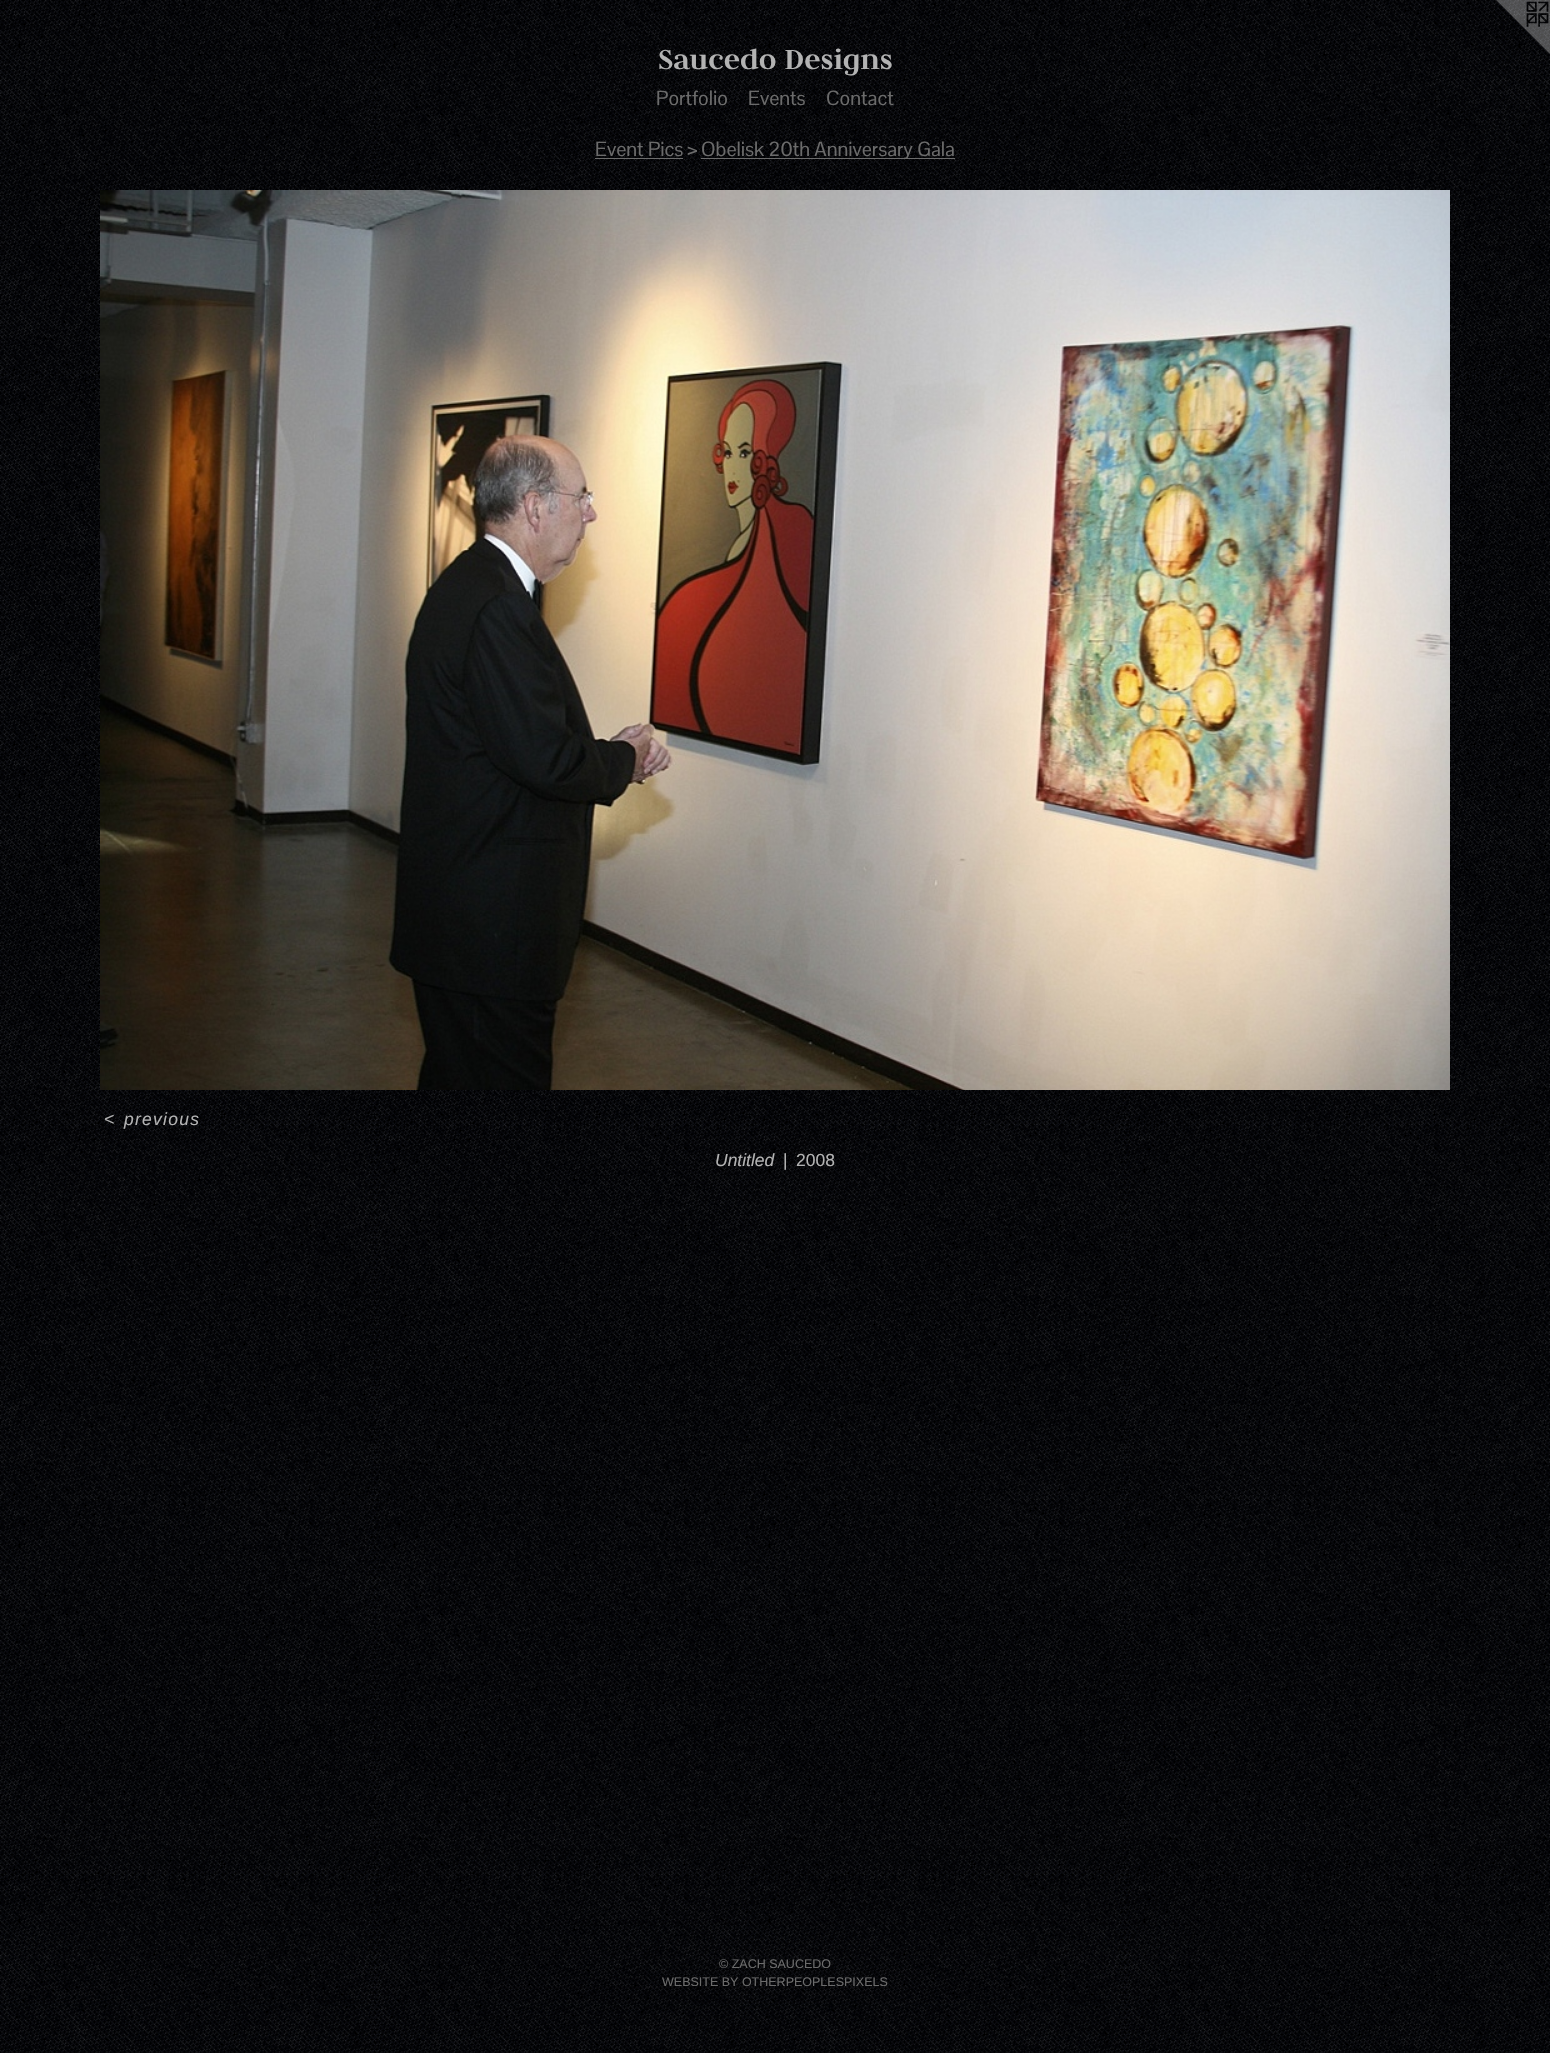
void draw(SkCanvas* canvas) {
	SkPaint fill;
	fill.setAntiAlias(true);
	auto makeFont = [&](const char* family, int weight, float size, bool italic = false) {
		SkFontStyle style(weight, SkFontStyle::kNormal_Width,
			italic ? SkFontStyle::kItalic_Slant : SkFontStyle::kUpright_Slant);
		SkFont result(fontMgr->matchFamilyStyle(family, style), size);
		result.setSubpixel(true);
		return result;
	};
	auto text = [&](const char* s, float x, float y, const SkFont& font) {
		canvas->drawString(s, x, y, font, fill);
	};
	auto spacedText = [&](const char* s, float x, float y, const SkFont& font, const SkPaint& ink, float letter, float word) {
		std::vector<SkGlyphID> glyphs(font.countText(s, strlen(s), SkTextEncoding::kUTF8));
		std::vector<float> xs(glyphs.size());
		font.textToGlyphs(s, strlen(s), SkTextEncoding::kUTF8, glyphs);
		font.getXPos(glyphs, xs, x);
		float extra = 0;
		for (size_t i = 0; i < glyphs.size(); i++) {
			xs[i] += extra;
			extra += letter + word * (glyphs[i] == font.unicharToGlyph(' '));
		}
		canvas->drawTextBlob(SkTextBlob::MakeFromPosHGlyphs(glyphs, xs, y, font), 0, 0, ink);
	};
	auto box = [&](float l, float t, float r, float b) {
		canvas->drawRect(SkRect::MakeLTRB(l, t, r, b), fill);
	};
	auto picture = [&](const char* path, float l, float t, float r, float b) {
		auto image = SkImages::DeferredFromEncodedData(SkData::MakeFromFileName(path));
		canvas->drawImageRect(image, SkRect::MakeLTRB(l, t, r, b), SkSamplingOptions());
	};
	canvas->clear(0xFFFFFFFF);
	picture("image0.png", 0, 0, 1550, 2053);
	picture("image1.png", 1496, 0, 1550, 54);
	fill.setColor(0xFF6B6B6B);
	box(595, 158, 683, 159);
	box(701, 158, 955, 159);
	picture("image2.png", 100, 190, 1450, 1090);
	auto font1 = makeFont("Judson", 700, 32.5f);
	fill.setColor(0xFFB3B3B3);
	text("Saucedo Designs", 658, 69, font1);
	auto font2 = makeFont("Pontano Sans", 400, 20);
	fill.setColor(0xFF6B6B6B);
	text("Portfolio", 656, 105, font2);
	text("Events", 748, 105, font2);
	text("Contact", 826, 105, font2);
	text("Event Pics >", 595, 156, font2);
	text("Obelisk 20th Anniversary Gala", 701, 156, font2);
	auto font3 = makeFont("Liberation Sans", 400, 17.5f, true);
	fill.setColor(0xFFB3B3B3);
	spacedText("<", 104, 1125, font3, fill, 1.25f, 0);
	spacedText("previous", 124, 1125, font3, fill, 1.25f, 0);
	text("Untitled", 715, 1166, font3);
	auto font4 = makeFont("Liberation Sans", 400, 17.5f);
	text("|", 783, 1166, font4);
	text("2008", 796, 1166, font4);
	auto font5 = makeFont("Liberation Sans", 400, 12.5f);
	fill.setColor(0xFF6B6B6B);
	text("© ZACH SAUCEDO", 719, 1968, font5);
	text("WEBSITE BY OTHERPEOPLESPIXELS", 662, 1986, font5);
}
